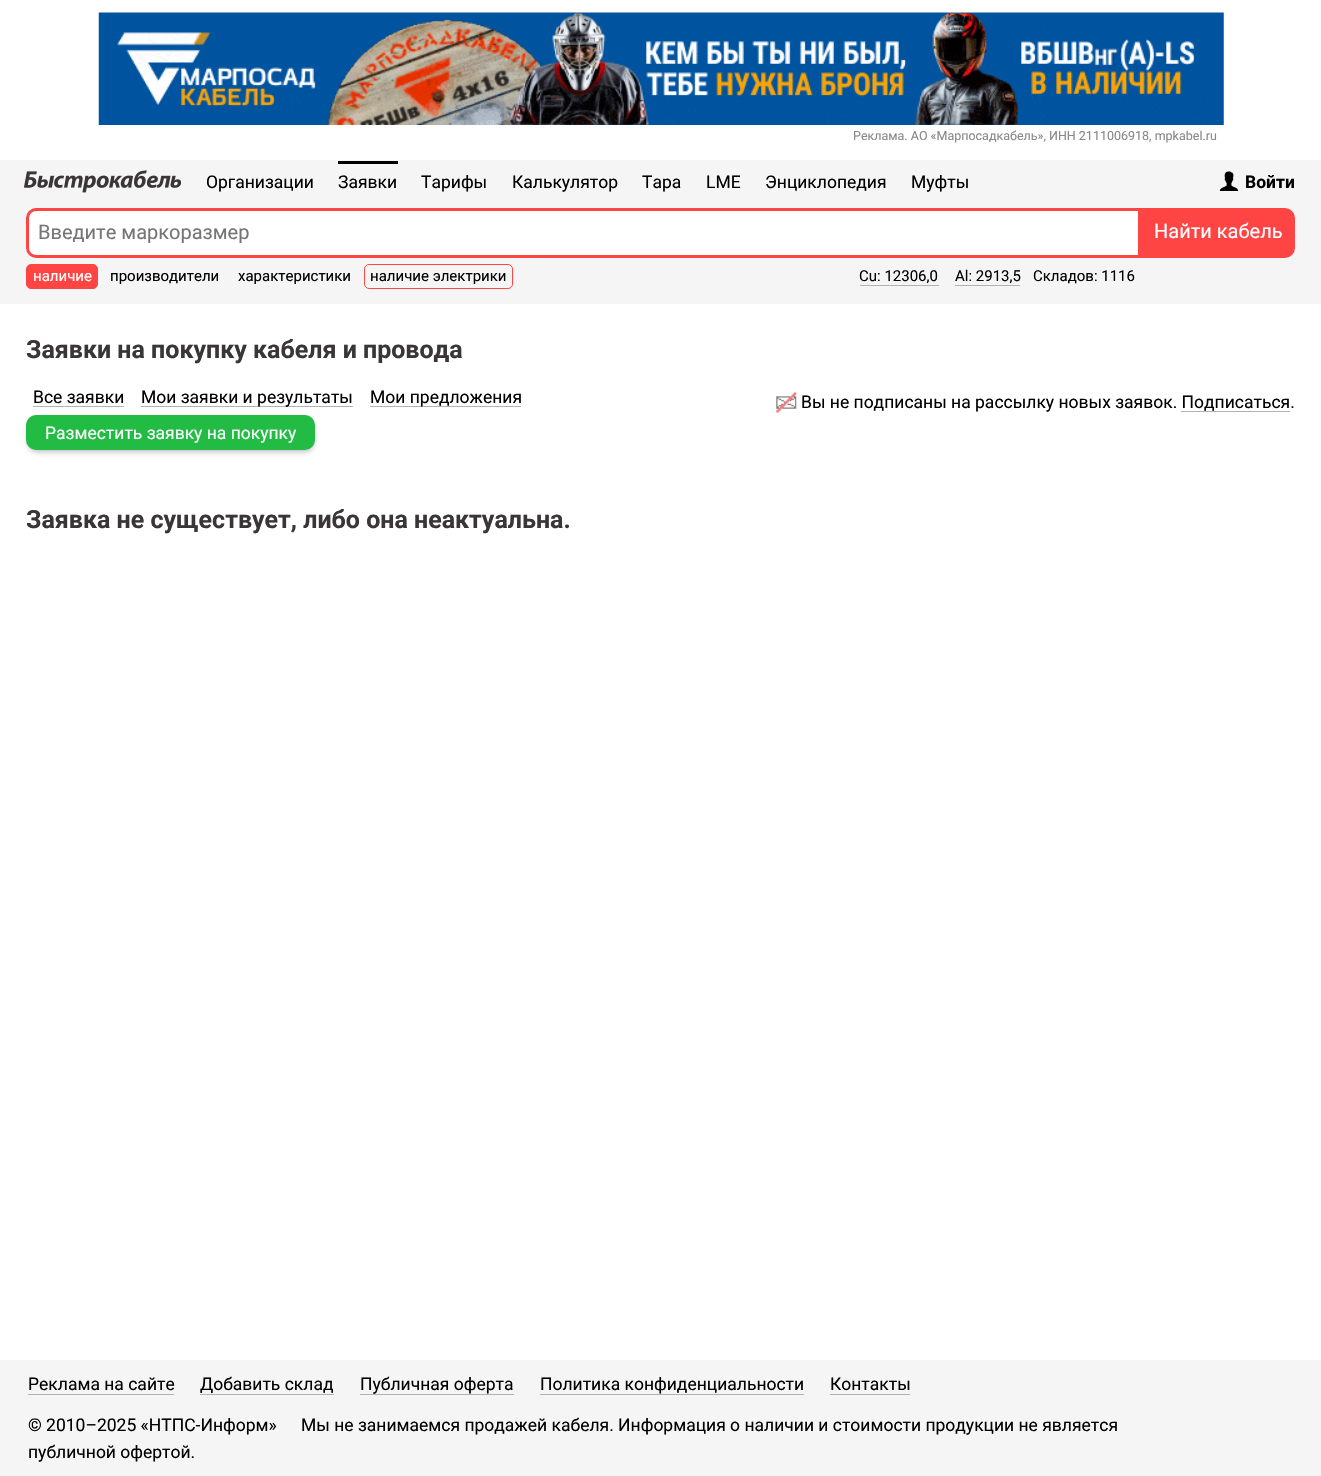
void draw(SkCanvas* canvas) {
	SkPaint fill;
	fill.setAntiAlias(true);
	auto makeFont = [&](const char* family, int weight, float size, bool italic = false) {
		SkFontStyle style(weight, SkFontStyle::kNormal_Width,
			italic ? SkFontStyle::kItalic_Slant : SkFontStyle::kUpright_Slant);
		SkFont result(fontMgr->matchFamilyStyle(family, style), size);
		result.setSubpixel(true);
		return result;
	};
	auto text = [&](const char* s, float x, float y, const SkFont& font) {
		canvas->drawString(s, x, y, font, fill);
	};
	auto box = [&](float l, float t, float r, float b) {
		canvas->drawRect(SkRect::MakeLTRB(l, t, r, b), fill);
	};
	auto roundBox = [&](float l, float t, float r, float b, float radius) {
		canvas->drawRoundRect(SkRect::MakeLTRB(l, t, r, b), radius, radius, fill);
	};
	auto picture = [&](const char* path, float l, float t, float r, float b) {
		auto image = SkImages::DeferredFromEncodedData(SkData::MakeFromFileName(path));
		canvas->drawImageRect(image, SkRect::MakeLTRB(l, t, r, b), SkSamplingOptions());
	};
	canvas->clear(0xFFFFFFFF);
	picture("image0.png", 98, 12, 1224, 125);
	fill.setColor(0xFFF5F5F5);
	box(0, 160, 1321, 304);
	picture("image1.png", 24, 170, 181, 193);
	fill.setColor(0xFF000000);
	box(338, 161, 398, 164);
	picture("image2.png", 1219, 171, 1239, 191);
	fill.setColor(0xFFFFFFFF);
	canvas->drawPath(SkPathBuilder().moveTo(36, 209.5f).lineTo(1139.5f, 209.5f).lineTo(1139.5f, 256.5f).lineTo(36, 256.5f).cubicTo(31.5f, 256.5f, 27.5f, 252.5f, 27.5f, 248).lineTo(27.5f, 218).cubicTo(27.5f, 213.5f, 31.5f, 209.5f, 36, 209.5f).close().detach(), fill);
	fill.setStyle(SkPaint::kStroke_Style);
	fill.setStrokeWidth(3);
	fill.setColor(0xFFFF4444);
	canvas->drawPath(SkPathBuilder().moveTo(36, 209.5f).lineTo(1139.5f, 209.5f).lineTo(1139.5f, 256.5f).lineTo(36, 256.5f).cubicTo(31.5f, 256.5f, 27.5f, 252.5f, 27.5f, 248).lineTo(27.5f, 218).cubicTo(27.5f, 213.5f, 31.5f, 209.5f, 36, 209.5f).close().detach(), fill);
	fill.setStyle(SkPaint::kFill_Style);
	canvas->drawRoundRect(SkRect::MakeLTRB(26.5f, 264.5f, 97.5f, 288.5f), 4.5f, 4.5f, fill);
	fill.setStyle(SkPaint::kStroke_Style);
	fill.setStrokeWidth(1);
	canvas->drawRoundRect(SkRect::MakeLTRB(26.5f, 264.5f, 97.5f, 288.5f), 4.5f, 4.5f, fill);
	canvas->drawRoundRect(SkRect::MakeLTRB(364.5f, 264.5f, 512.5f, 288.5f), 4.5f, 4.5f, fill);
	fill.setStyle(SkPaint::kFill_Style);
	fill.setColor(0xFFB2B2B2);
	box(860, 285, 939, 286);
	box(955, 285, 1020, 286);
	fill.setColor(0xFFFF4444);
	canvas->drawPath(SkPathBuilder().moveTo(1142.5f, 209.5f).lineTo(1285, 209.5f).cubicTo(1289.5f, 209.5f, 1293.5f, 213.5f, 1293.5f, 218).lineTo(1293.5f, 248).cubicTo(1293.5f, 252.5f, 1289.5f, 256.5f, 1285, 256.5f).lineTo(1142.5f, 256.5f).close().detach(), fill);
	fill.setStyle(SkPaint::kStroke_Style);
	fill.setStrokeWidth(3);
	canvas->drawPath(SkPathBuilder().moveTo(1142.5f, 209.5f).lineTo(1285, 209.5f).cubicTo(1289.5f, 209.5f, 1293.5f, 213.5f, 1293.5f, 218).lineTo(1293.5f, 248).cubicTo(1293.5f, 252.5f, 1289.5f, 256.5f, 1285, 256.5f).lineTo(1142.5f, 256.5f).close().detach(), fill);
	fill.setStyle(SkPaint::kFill_Style);
	fill.setColor(0xFFB2B2B2);
	box(33, 406, 124, 407);
	box(141, 406, 353, 407);
	box(370, 406, 521, 407);
	fill.setColor(0xFFAAAAAA);
	fill.setMaskFilter(SkMaskFilter::MakeBlur(kNormal_SkBlurStyle, 3));
	canvas->drawRoundRect(SkRect::MakeLTRB(29, 421, 313, 451), 8, 8, fill);
	fill.setMaskFilter(nullptr);
	fill.setColor(0xFF22BB44);
	roundBox(26, 415, 315, 450, 10);
	picture("image3.png", 776, 392, 797, 413);
	fill.setColor(0xFFF5F5F5);
	box(0, 1360, 1321, 1476);
	fill.setColor(0xFFB2B2B2);
	box(28, 1394, 174, 1395);
	box(200, 1394, 334, 1395);
	box(360, 1394, 514, 1395);
	box(540, 1394, 804, 1395);
	box(830, 1394, 910, 1395);
	auto font1 = makeFont("Roboto", 400, 12.5f);
	fill.setColor(0xFF888888);
	text("Реклама. АО «Марпосадкабель», ИНН 2111006918, mpkabel.ru", 853, 140, font1);
	auto font2 = makeFont("Roboto", 400, 17.5f);
	fill.setColor(0xFF000000);
	text("Организации", 206, 188, font2);
	text("Заявки", 338, 188, font2);
	text("Тарифы", 421, 188, font2);
	text("Калькулятор", 512, 188, font2);
	text("Тара", 642, 188, font2);
	text("LME", 706, 188, font2);
	text("Энциклопедия", 765, 188, font2);
	text("Муфты", 911, 188, font2);
	auto font3 = makeFont("Roboto", 700, 17.5f);
	text("Войти", 1245, 188, font3);
	auto font4 = makeFont("Roboto", 400, 20);
	fill.setColor(0xFF757575);
	text("Введите маркоразмер", 38, 239, font4);
	auto font5 = makeFont("Roboto", 400, 15);
	fill.setColor(0xFFFFFFFF);
	text("наличие", 33, 281, font5);
	fill.setColor(0xFF000000);
	text("производители", 110, 281, font5);
	text("характеристики", 238, 281, font5);
	text("наличие электрики", 370, 281, font5);
	text("Cu: 12306,0", 859, 281, font5);
	text("Al: 2913,5", 955, 281, font5);
	text("Складов: 1116", 1033, 281, font5);
	fill.setColor(0xFFFFFFFF);
	text("Найти кабель", 1154, 238, font4);
	auto font6 = makeFont("Roboto", 700, 25);
	fill.setColor(0xFF3A3536);
	text("Заявки на покупку кабеля и провода", 26, 358, font6);
	fill.setColor(0xFF000000);
	text("Все заявки", 33, 403, font2);
	text("Мои заявки и результаты", 141, 403, font2);
	text("Мои предложения", 370, 403, font2);
	fill.setColor(0xFFFFFFFF);
	text("Разместить заявку на покупку", 45, 439, font2);
	fill.setColor(0xFF000000);
	text("Вы не подписаны на рассылку новых заявок. Подписаться.", 801, 408, font2);
	fill.setColor(0xFFB2B2B2);
	box(1181, 411, 1290, 412);
	fill.setColor(0xFF3A3536);
	text("Заявка не существует, либо она неактуальна.", 26, 528, font6);
	fill.setColor(0xFF000000);
	text("Реклама на сайте", 28, 1390, font2);
	text("Добавить склад", 200, 1390, font2);
	text("Публичная оферта", 360, 1390, font2);
	text("Политика конфиденциальности", 540, 1390, font2);
	text("Контакты", 830, 1390, font2);
	text("© 2010–2025 «НТПС-Информ»", 28, 1431, font2);
	text("Мы не занимаемся продажей кабеля. Информация о наличии и стоимости продукции не является", 301, 1431, font2);
	text("публичной офертой.", 28, 1458, font2);
}
